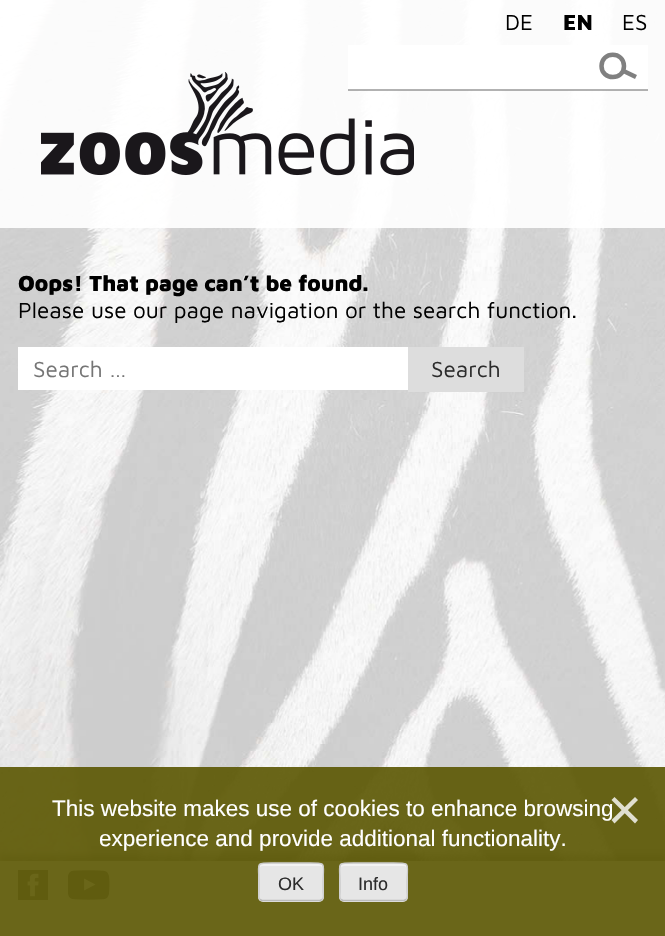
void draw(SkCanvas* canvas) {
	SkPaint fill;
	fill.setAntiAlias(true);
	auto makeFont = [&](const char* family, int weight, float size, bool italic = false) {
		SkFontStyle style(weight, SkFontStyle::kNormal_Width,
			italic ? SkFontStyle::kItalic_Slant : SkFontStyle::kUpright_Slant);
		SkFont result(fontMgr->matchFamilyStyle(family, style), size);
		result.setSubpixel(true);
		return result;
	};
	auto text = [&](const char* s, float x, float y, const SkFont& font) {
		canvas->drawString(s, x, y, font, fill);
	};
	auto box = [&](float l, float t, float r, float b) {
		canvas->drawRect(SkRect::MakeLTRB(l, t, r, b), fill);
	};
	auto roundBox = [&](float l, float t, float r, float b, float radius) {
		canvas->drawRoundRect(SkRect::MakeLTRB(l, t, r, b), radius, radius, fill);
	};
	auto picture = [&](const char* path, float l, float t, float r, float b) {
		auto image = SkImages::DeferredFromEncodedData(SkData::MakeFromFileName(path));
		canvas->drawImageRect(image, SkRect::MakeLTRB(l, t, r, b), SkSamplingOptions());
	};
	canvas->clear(0xFFFFFFFF);
	picture("image0.png", 0, 0, 665, 861);
	fill.setColor(0xE6FFFFFF);
	box(0, 0, 665, 228);
	picture("image1.png", 41, 72, 414, 176);
	fill.setColor(0xFFFFFFFF);
	box(348, 45, 648, 90);
	fill.setColor(0x4D000000);
	box(348, 89, 648, 91);
	fill.setStyle(SkPaint::kStroke_Style);
	fill.setStrokeWidth(4.5f);
	fill.setColor(0xFF808080);
	canvas->drawPath(SkPathBuilder().moveTo(636, 77).lineTo(622.5f, 70.5f).moveTo(601.5f, 66).cubicTo(601.5f, 51, 624, 51, 624, 66).cubicTo(624, 81, 601.5f, 80.5f, 601.5f, 66).close().detach(), fill);
	fill.setStyle(SkPaint::kFill_Style);
	fill.setColor(0xFFFFFFFF);
	box(18, 347, 408, 390);
	fill.setColor(0xFFDDDDDD);
	box(408, 347, 524, 392);
	fill.setColor(0x33000000);
	fill.setMaskFilter(SkMaskFilter::MakeBlur(kNormal_SkBlurStyle, 3));
	canvas->drawRect(SkRect::MakeLTRB(0, 855, 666, 930), fill);
	fill.setMaskFilter(nullptr);
	fill.setColor(0xFFFFFFFF);
	box(0, 861, 665, 935);
	picture("image2.png", 18, 870, 48, 900);
	picture("image3.png", 68, 870, 110, 900);
	fill.setColor(0xE65A5500);
	box(0, 767, 665, 936);
	fill.setColor(0xFFE6E6E6);
	roundBox(258, 863, 324, 902, 5);
	fill.setColor(0xFFF3F3F3);
	canvas->drawPath(SkPathBuilder().moveTo(262, 866).lineTo(310, 866).cubicTo(325, 866, 322, 864, 322, 878).lineTo(322, 899).cubicTo(323, 899, 323, 898, 323, 897).lineTo(323, 867).cubicTo(323, 865, 322, 864, 320, 864).lineTo(263, 864).cubicTo(261, 864, 260, 865, 260, 867).lineTo(260, 868).cubicTo(260, 867, 261, 866, 262, 866).close().detach(), fill);
	fill.setStyle(SkPaint::kStroke_Style);
	fill.setStrokeWidth(1.5f);
	fill.setColor(0xFFBBBBBB);
	canvas->drawPath(SkPathBuilder().moveTo(322, 899.5f).lineTo(320, 900.5f).lineTo(262, 900.5f).lineTo(260, 899.5f).detach(), fill);
	fill.setColor(0xFFCCCCCC);
	canvas->drawPath(SkPathBuilder().moveTo(260, 899.5f).cubicTo(258, 898, 259, 894, 259, 892).lineTo(259, 882).cubicTo(259, 863, 254.5f, 863, 272, 863).lineTo(310, 863).cubicTo(327.5f, 863, 323, 863, 323, 882).lineTo(323, 892).cubicTo(323, 894, 324, 898, 322, 899.5f).detach(), fill);
	fill.setStyle(SkPaint::kFill_Style);
	fill.setColor(0xFFE6E6E6);
	roundBox(339, 863, 408, 902, 5);
	fill.setColor(0xFFF3F3F3);
	canvas->drawPath(SkPathBuilder().moveTo(344, 866).lineTo(394, 866).cubicTo(409, 866, 406, 864, 406, 878).lineTo(406, 899).cubicTo(407, 899, 407, 898, 407, 897).lineTo(407, 867).cubicTo(407, 865, 406, 864, 404, 864).lineTo(344, 864).cubicTo(342, 864, 341, 865, 341, 867).close().detach(), fill);
	fill.setStyle(SkPaint::kStroke_Style);
	fill.setColor(0xFFBBBBBB);
	canvas->drawPath(SkPathBuilder().moveTo(406, 899.5f).lineTo(404, 900.5f).lineTo(343, 900.5f).lineTo(341, 899.5f).detach(), fill);
	fill.setColor(0xFFCCCCCC);
	canvas->drawPath(SkPathBuilder().moveTo(341, 899.5f).cubicTo(339, 898, 340, 894, 340, 892).lineTo(340, 882).cubicTo(340, 863, 335.5f, 863, 353.5f, 863).lineTo(393.5f, 863).cubicTo(411.5f, 863, 407, 863, 407, 882).lineTo(407, 892).cubicTo(407, 894, 408, 898, 406, 899.5f).detach(), fill);
	auto font1 = makeFont("Maven Pro", 400, 22.5f);
	fill.setStyle(SkPaint::kFill_Style);
	fill.setColor(0xFF000000);
	text("DE", 505, 30, font1);
	auto font2 = makeFont("Maven Pro", 800, 22.5f);
	text("EN", 563, 30, font2);
	text("ES", 622, 30, font1);
	auto font3 = makeFont("Maven Pro", 900, 22.5f);
	text("Oops! That page can’t be found.", 18, 291, font3);
	text("Please use our page navigation or the search function.", 18, 318, font1);
	fill.setColor(0xFF757575);
	text("Search …", 33, 377, font1);
	fill.setColor(0xFF2C2C2C);
	text("Search", 431, 377, font1);
	auto font4 = makeFont("Liberation Sans", 400, 22.5f);
	fill.setColor(0xFFFFFFFF);
	text("This website makes use of cookies to enhance browsing", 52, 816, font4);
	text("experience and provide additional functionality.", 99, 846, font4);
	fill.setColor(0xFFE0DFD0);
	canvas->drawPath(SkPathBuilder().moveTo(635, 797).lineTo(638, 800).lineTo(614.5f, 823.5f).lineTo(611.5f, 820).close().detach(), fill);
	canvas->drawPath(SkPathBuilder().moveTo(611.5f, 800).lineTo(614.5f, 797).lineTo(638, 820).lineTo(635, 823.5f).close().detach(), fill);
	auto font5 = makeFont("Liberation Sans", 400, 18);
	fill.setColor(0xFF2C2C2C);
	text("OK", 278, 890, font5);
	text("Info", 358, 890, font5);
}
